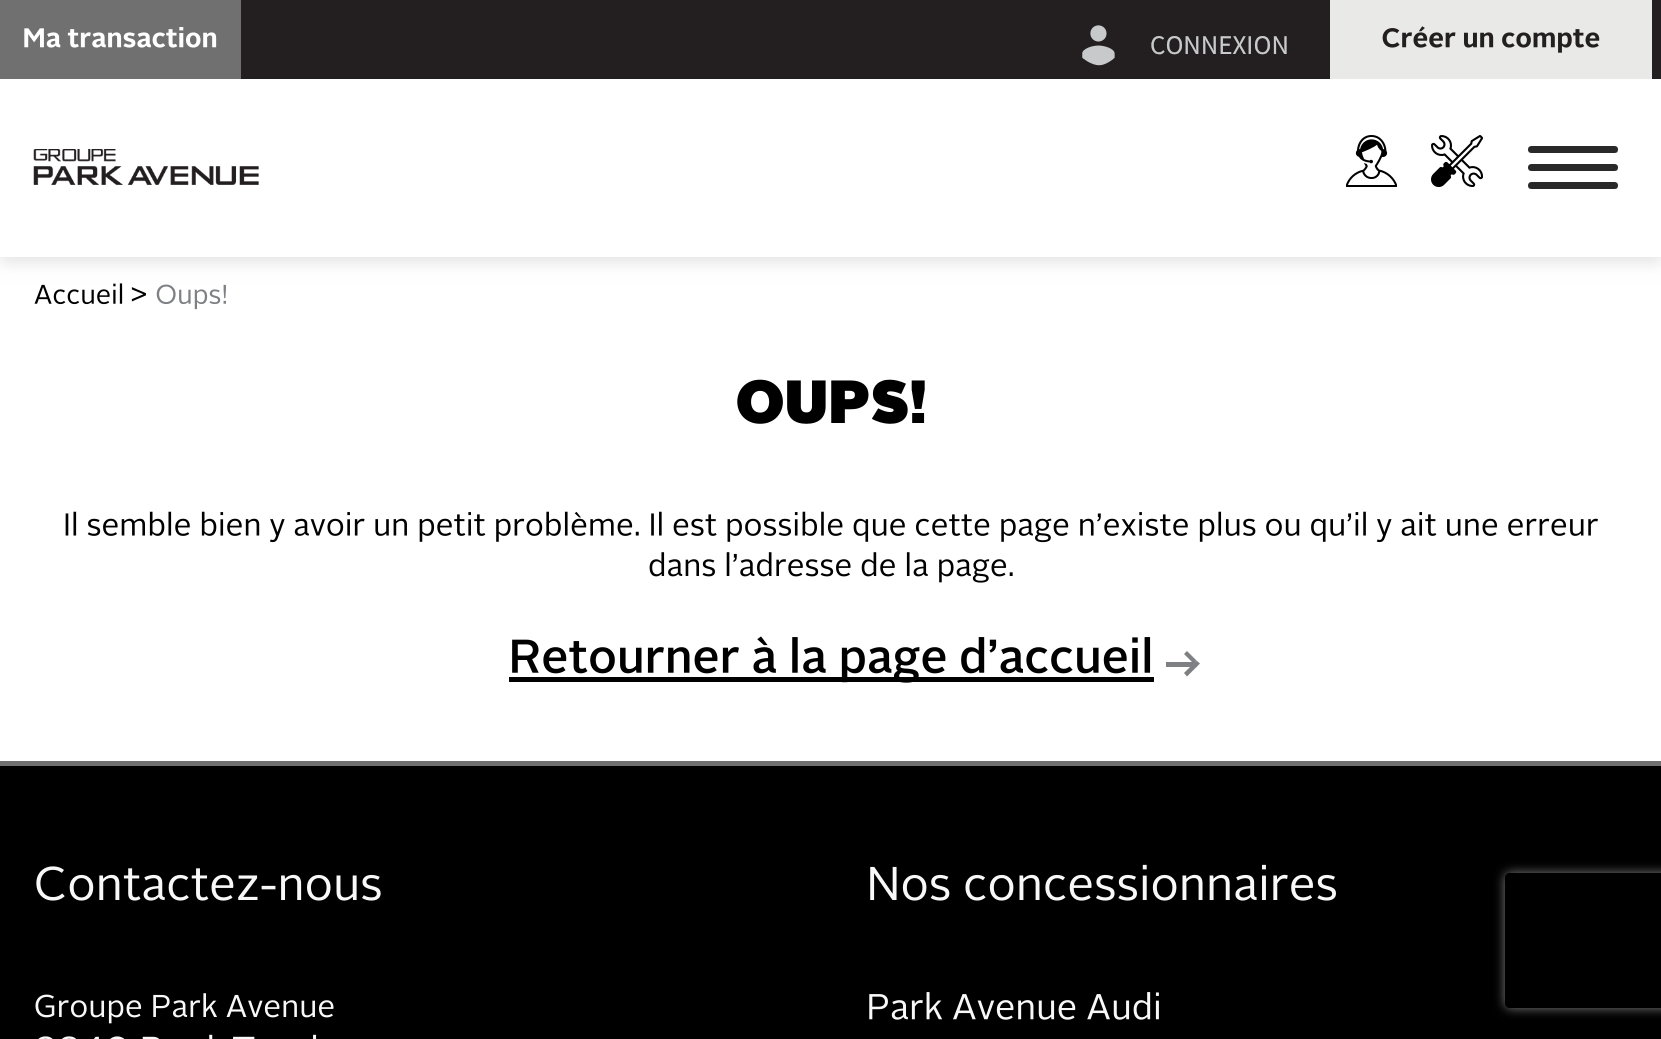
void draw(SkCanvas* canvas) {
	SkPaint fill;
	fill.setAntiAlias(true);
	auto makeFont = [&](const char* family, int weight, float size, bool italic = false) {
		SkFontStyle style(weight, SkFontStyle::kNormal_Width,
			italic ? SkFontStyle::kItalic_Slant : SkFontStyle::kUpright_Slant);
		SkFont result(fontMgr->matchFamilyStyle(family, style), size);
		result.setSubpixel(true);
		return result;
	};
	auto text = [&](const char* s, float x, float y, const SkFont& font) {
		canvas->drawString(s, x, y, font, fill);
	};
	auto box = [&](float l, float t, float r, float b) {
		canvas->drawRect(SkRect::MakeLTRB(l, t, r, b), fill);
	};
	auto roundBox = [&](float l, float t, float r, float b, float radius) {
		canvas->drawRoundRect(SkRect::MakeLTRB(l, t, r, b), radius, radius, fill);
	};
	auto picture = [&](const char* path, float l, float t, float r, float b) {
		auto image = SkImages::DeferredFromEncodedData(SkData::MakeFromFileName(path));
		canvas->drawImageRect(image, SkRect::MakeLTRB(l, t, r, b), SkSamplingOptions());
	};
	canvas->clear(0xFFFFFFFF);
	picture("image6.png", 34, 283, 123, 305);
	picture("image8.png", 156, 284, 226, 310);
	fill.setColor(0x1A000000);
	fill.setMaskFilter(SkMaskFilter::MakeBlur(kNormal_SkBlurStyle, 7));
	canvas->drawRect(SkRect::MakeLTRB(0, 83, 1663, 263), fill);
	fill.setMaskFilter(nullptr);
	fill.setColor(0xFF231F20);
	box(241, 0, 1661, 79);
	fill.setColor(0xFF707070);
	box(0, 0, 241, 79);
	picture("image0.png", 24, 27, 217, 48);
	picture("image1.png", 1082, 25, 1115, 66);
	fill.setColor(0xFFE9E9E8);
	box(1330, 0, 1652, 79);
	picture("image2.png", 1382, 26, 1600, 53);
	fill.setColor(0xFFFFFFFF);
	box(0, 79, 1661, 257);
	picture("image3.png", 33, 149, 259, 185);
	picture("image4.png", 1346, 135, 1397, 187);
	picture("image5.png", 1431, 135, 1483, 187);
	fill.setColor(0xFF292929);
	roundBox(1528, 146, 1618, 153, 3.5f);
	roundBox(1528, 164, 1618, 171, 3.5f);
	roundBox(1528, 182, 1618, 189, 3.5f);
	picture("image7.png", 131, 287, 146, 302);
	picture("image9.png", 737, 379, 925, 424);
	picture("image10.png", 65, 511, 1598, 543);
	picture("image11.png", 649, 552, 1013, 583);
	fill.setColor(0xFF000000);
	box(509, 677, 1154, 682);
	picture("image12.png", 512, 636, 1151, 683);
	fill.setColor(0xFF7E8084);
	box(1166, 662, 1197, 667);
	canvas->drawPath(SkPathBuilder().moveTo(1184, 673).lineTo(1196.5f, 660.5f).lineTo(1200, 663.5f).lineTo(1187, 676.5f).close().detach(), fill);
	canvas->drawPath(SkPathBuilder().moveTo(1187, 651).lineTo(1196.5f, 660.5f).lineTo(1193.5f, 663.5f).lineTo(1184, 654).close().detach(), fill);
	fill.setColor(0xFF000000);
	box(0, 766, 1661, 1039);
	fill.setColor(0xFF707070);
	box(0, 761, 1661, 766);
	picture("image13.png", 36, 866, 381, 901);
	picture("image14.png", 35, 993, 334, 1024);
	picture("image15.png", 38, 1034, 317, 1039);
	picture("image16.png", 870, 864, 1336, 901);
	picture("image17.png", 869, 992, 1159, 1020);
	canvas->save();
	canvas->clipPath(SkPathBuilder(SkPathFillType::kEvenOdd).moveTo(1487, 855).lineTo(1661, 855).lineTo(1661, 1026).lineTo(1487, 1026).close().moveTo(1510, 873).lineTo(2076, 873).cubicTo(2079, 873, 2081, 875, 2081, 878).lineTo(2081, 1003).cubicTo(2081, 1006, 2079, 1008, 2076, 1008).lineTo(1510, 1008).cubicTo(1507, 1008, 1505, 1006, 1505, 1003).lineTo(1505, 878).cubicTo(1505, 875, 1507, 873, 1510, 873).close().detach(), true);
	fill.setColor(0xFF808080);
	fill.setMaskFilter(SkMaskFilter::MakeBlur(kNormal_SkBlurStyle, 5.5f));
	canvas->drawRoundRect(SkRect::MakeLTRB(1505, 873, 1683, 1008), 5, 5, fill);
	fill.setMaskFilter(nullptr);
	canvas->restore();
	auto font1 = makeFont("Source Sans Pro", 400, 27);
	fill.setColor(0xFFC8C9CB);
	text("CONNEXION", 1150, 54, font1);
}
